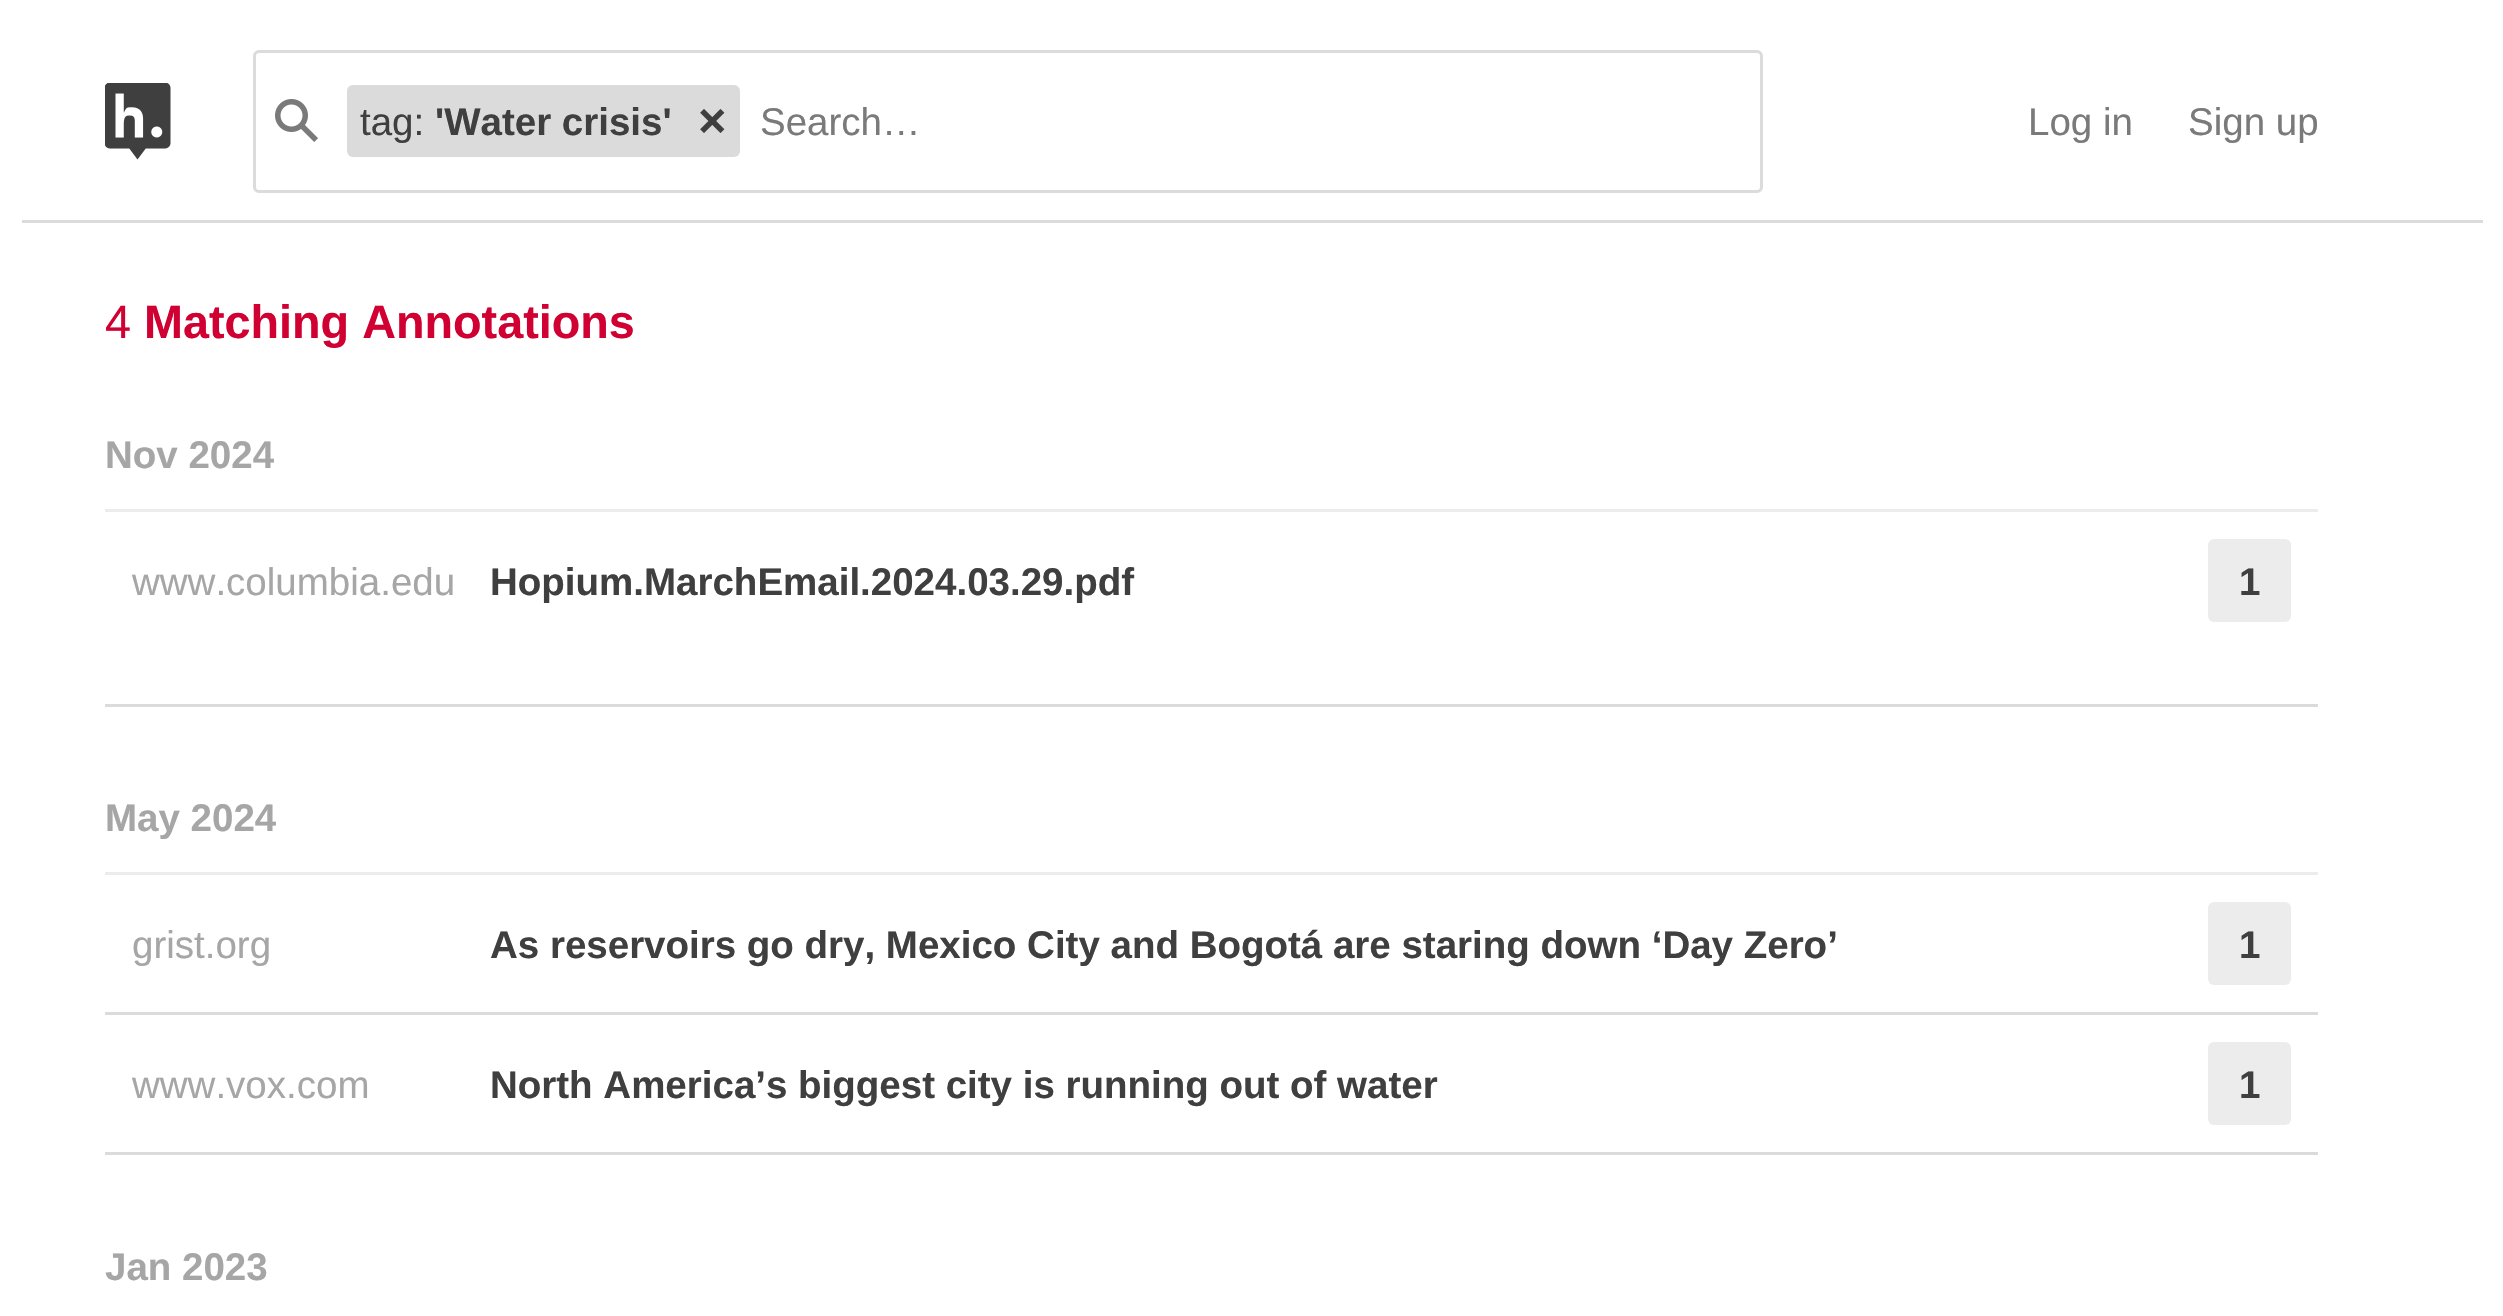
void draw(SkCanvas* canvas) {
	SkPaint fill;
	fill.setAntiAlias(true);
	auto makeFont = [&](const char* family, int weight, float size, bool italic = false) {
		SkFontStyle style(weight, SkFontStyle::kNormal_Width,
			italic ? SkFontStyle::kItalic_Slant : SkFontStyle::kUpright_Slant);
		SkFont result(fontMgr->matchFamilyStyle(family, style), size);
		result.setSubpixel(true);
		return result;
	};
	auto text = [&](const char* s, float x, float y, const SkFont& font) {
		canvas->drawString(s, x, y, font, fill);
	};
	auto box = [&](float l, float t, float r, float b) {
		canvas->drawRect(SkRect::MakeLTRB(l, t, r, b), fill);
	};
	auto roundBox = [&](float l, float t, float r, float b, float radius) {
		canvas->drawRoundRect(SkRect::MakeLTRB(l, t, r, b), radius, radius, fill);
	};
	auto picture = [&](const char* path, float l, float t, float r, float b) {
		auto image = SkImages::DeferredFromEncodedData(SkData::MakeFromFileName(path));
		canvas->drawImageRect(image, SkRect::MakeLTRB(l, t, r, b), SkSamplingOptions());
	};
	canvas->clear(0xFFFFFFFF);
	fill.setColor(0xFFDBDBDB);
	box(22, 220, 2483, 223);
	picture("image0.png", 105, 83, 171, 160);
	fill.setStyle(SkPaint::kStroke_Style);
	fill.setStrokeWidth(3);
	canvas->drawRoundRect(SkRect::MakeLTRB(254.5f, 51.5f, 1761.5f, 191.5f), 4.5f, 4.5f, fill);
	picture("image1.png", 275, 99, 318, 142);
	fill.setStyle(SkPaint::kFill_Style);
	roundBox(347, 85, 740, 157, 6);
	picture("image2.png", 700, 109, 725, 133);
	fill.setColor(0xFFECECEC);
	box(105, 509, 2318, 512);
	fill.setColor(0xFFDBDBDB);
	box(105, 704, 2318, 707);
	fill.setColor(0xFFECECEC);
	roundBox(2208, 539, 2291, 622, 6);
	box(105, 872, 2318, 875);
	fill.setColor(0xFFDBDBDB);
	box(105, 1012, 2318, 1015);
	fill.setColor(0xFFECECEC);
	roundBox(2208, 902, 2291, 985, 6);
	fill.setColor(0xFFDBDBDB);
	box(105, 1152, 2318, 1155);
	fill.setColor(0xFFECECEC);
	roundBox(2208, 1042, 2291, 1125, 6);
	auto font1 = makeFont("Liberation Sans", 400, 38.5f);
	fill.setColor(0xFF3F3F3F);
	text("tag:", 360, 135, font1);
	auto font2 = makeFont("Liberation Sans", 700, 38.5f);
	text("'Water crisis'", 435, 135, font2);
	fill.setColor(0xFF7A7A7A);
	text("Search…", 760, 135, font1);
	text("Log in", 2028, 135, font1);
	text("Sign up", 2188, 135, font1);
	auto font3 = makeFont("Liberation Sans", 400, 46.75f);
	fill.setColor(0xFFD00032);
	text("4", 105, 338, font3);
	auto font4 = makeFont("Liberation Sans", 700, 46.75f);
	text("Matching Annotations", 144, 338, font4);
	fill.setColor(0xFFA6A6A6);
	text("Nov 2024", 105, 468, font2);
	text("www.columbia.edu", 132, 595, font1);
	fill.setColor(0xFF3F3F3F);
	text("Hopium.MarchEmail.2024.03.29.pdf", 490, 595, font2);
	text("1", 2239, 595, font2);
	fill.setColor(0xFFA6A6A6);
	text("May 2024", 105, 831, font2);
	text("grist.org", 132, 958, font1);
	fill.setColor(0xFF3F3F3F);
	text("As reservoirs go dry, Mexico City and Bogotá are staring down ‘Day Zero’", 490, 958, font2);
	text("1", 2239, 958, font2);
	fill.setColor(0xFFA6A6A6);
	text("www.vox.com", 132, 1098, font1);
	fill.setColor(0xFF3F3F3F);
	text("North America’s biggest city is running out of water", 490, 1098, font2);
	text("1", 2239, 1098, font2);
	fill.setColor(0xFFA6A6A6);
	text("Jan 2023", 105, 1280, font2);
}
